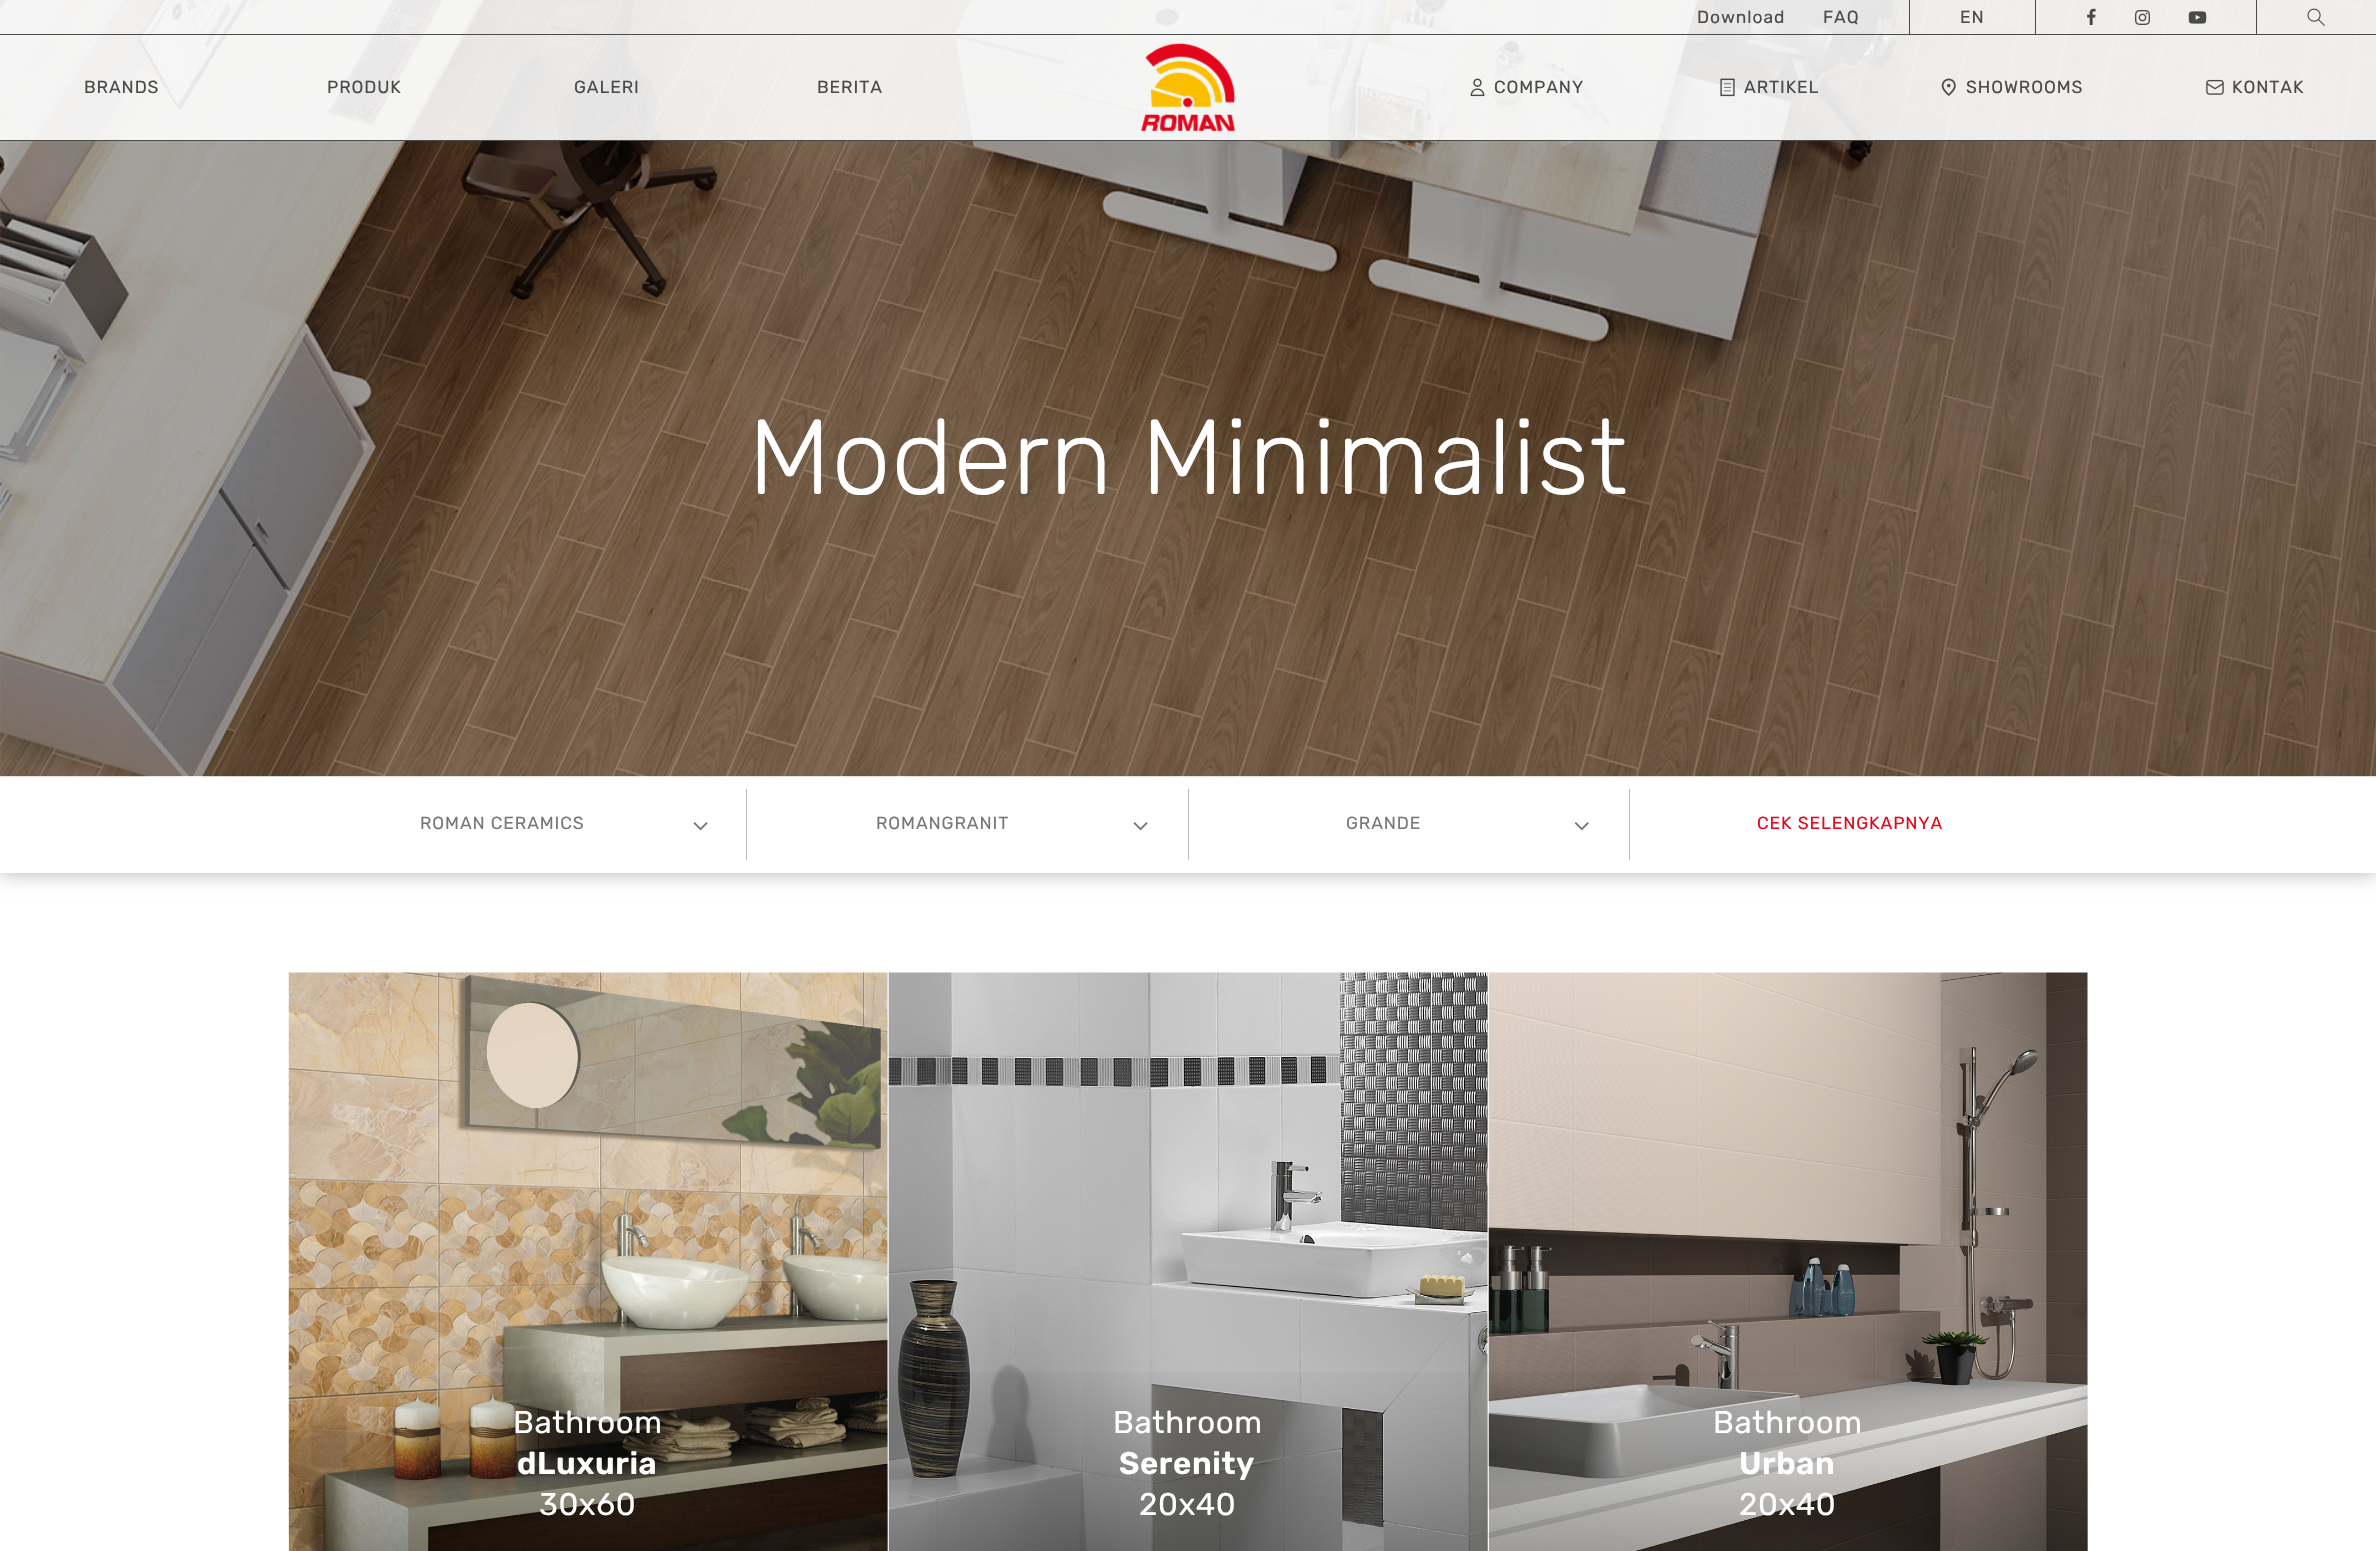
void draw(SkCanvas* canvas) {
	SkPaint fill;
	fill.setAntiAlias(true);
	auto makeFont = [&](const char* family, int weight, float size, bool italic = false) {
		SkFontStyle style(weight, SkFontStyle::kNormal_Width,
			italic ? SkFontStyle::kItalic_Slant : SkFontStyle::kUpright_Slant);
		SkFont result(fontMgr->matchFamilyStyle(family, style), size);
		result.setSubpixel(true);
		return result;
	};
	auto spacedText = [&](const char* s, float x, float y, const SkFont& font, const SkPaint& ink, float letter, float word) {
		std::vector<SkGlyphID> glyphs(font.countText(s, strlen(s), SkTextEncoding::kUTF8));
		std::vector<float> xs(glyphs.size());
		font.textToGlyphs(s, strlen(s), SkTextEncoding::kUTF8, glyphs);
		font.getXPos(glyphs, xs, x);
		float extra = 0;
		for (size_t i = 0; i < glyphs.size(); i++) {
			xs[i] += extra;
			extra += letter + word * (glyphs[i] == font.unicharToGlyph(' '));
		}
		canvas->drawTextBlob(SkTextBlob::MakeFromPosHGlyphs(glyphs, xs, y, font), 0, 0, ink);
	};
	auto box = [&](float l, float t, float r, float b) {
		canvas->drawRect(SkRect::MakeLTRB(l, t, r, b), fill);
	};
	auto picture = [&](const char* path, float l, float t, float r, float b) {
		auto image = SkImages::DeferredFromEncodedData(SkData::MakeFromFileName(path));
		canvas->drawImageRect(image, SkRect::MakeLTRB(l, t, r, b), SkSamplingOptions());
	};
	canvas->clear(0xFFFFFFFF);
	canvas->save();
	canvas->clipPath(SkPathBuilder(SkPathFillType::kEvenOdd).moveTo(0, 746).lineTo(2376, 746).lineTo(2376, 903).lineTo(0, 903).close().moveTo(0, 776).lineTo(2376, 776).lineTo(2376, 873).lineTo(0, 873).close().detach(), true);
	fill.setColor(0x4D000000);
	fill.setMaskFilter(SkMaskFilter::MakeBlur(kNormal_SkBlurStyle, 9.5f));
	canvas->drawRect(SkRect::MakeLTRB(0, 776, 2376, 873), fill);
	fill.setMaskFilter(nullptr);
	canvas->restore();
	picture("image9.png", 0, 0, 2376, 777);
	fill.setColor(0xE3FFFFFF);
	box(0, 0, 2376, 34);
	fill.setColor(0xFF4A4A49);
	box(0, 34, 2376, 35);
	box(1909, 0, 1910, 34);
	box(2035, 0, 2036, 34);
	box(2256, 0, 2257, 34);
	picture("image0.png", 2087, 8, 2096, 25);
	picture("image1.png", 2135, 10, 2150, 25);
	picture("image2.png", 2188, 11, 2207, 24);
	picture("image3.png", 2307, 8, 2325, 26);
	fill.setColor(0xE3FFFFFF);
	box(0, 35, 2376, 140);
	fill.setColor(0xFF4A4A49);
	box(0, 140, 2376, 141);
	picture("image4.png", 1141, 43, 1236, 132);
	picture("image5.png", 1470, 78, 1485, 97);
	picture("image6.png", 1720, 78, 1735, 97);
	picture("image7.png", 1941, 78, 1956, 96);
	picture("image8.png", 2206, 79, 2224, 95);
	fill.setColor(0xFFBABABA);
	box(746, 789, 747, 860);
	picture("image10.png", 693, 822, 708, 831);
	box(1188, 789, 1189, 860);
	picture("image10.png", 1133, 822, 1148, 831);
	box(1629, 789, 1630, 860);
	picture("image11.png", 1574, 822, 1589, 831);
	picture("image12.png", 288, 972, 888, 1551);
	{
		const SkColor colors[] = {0x00000000, 0x59000000};
		const float stops[] = {0, 1};
		const SkPoint ends[] = {{588, 1359}, {588, 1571}};
		fill.setShader(SkGradientShader::MakeLinear(ends, colors, stops, 2, SkTileMode::kClamp));
		fill.setAlpha(255);
	}
	box(289, 1372, 888, 1551);
	picture("image13.png", 888, 972, 1488, 1551);
	{
		const SkColor colors[] = {0x00000000, 0x59000000};
		const float stops[] = {0, 1};
		const SkPoint ends[] = {{1188, 1359}, {1188, 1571}};
		fill.setShader(SkGradientShader::MakeLinear(ends, colors, stops, 2, SkTileMode::kClamp));
		fill.setAlpha(255);
	}
	box(889, 1372, 1488, 1551);
	picture("image14.png", 1488, 972, 2088, 1551);
	{
		const SkColor colors[] = {0x00000000, 0x59000000};
		const float stops[] = {0, 1};
		const SkPoint ends[] = {{1788, 1359}, {1788, 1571}};
		fill.setShader(SkGradientShader::MakeLinear(ends, colors, stops, 2, SkTileMode::kClamp));
		fill.setAlpha(255);
	}
	box(1489, 1372, 2088, 1551);
	auto font1 = makeFont("Rubik", 400, 17.5f);
	fill.setShader(nullptr);
	fill.setColor(0xFF4A4A49);
	spacedText("Download", 1697, 23, font1, fill, 0.9f, 0);
	spacedText("FAQ", 1823, 23, font1, fill, 0.9f, 0);
	spacedText("EN", 1960, 23, font1, fill, 0.9f, 0);
	spacedText("BRANDS", 84, 93, font1, fill, 0.9f, 0);
	spacedText("PRODUK", 327, 93, font1, fill, 0.9f, 0);
	spacedText("GALERI", 574, 93, font1, fill, 0.9f, 0);
	spacedText("BERITA", 817, 93, font1, fill, 0.9f, 0);
	spacedText("COMPANY", 1494, 93, font1, fill, 0.9f, 0);
	spacedText("ARTIKEL", 1744, 93, font1, fill, 0.9f, 0);
	spacedText("SHOWROOMS", 1966, 93, font1, fill, 0.9f, 0);
	spacedText("KONTAK", 2232, 93, font1, fill, 0.9f, 0);
	auto font2 = makeFont("Rubik", 300, 106.25f);
	fill.setColor(0xFFFFFFFF);
	spacedText("Modern Minimalist", 748, 494, font2, fill, 0.6f, 0);
	fill.setColor(0xFF787878);
	spacedText("ROMAN CERAMICS", 420, 829, font1, fill, 0.9f, 0);
	spacedText("ROMANGRANIT", 876, 829, font1, fill, 0.9f, 0);
	spacedText("GRANDE", 1346, 829, font1, fill, 0.9f, 0);
	fill.setColor(0xFFE5091E);
	spacedText("CEK SELENGKAPNYA", 1757, 829, font1, fill, 0.9f, 0);
	auto font3 = makeFont("Rubik", 400, 31.25f);
	fill.setColor(0xFFFFFFFF);
	spacedText("Bathroom", 513, 1433, font3, fill, 0.6f, 0);
	auto font4 = makeFont("Rubik", 600, 31.25f);
	spacedText("dLuxuria", 517, 1474, font4, fill, 0.6f, 0);
	spacedText("30x60", 539, 1515, font3, fill, 0.6f, 0);
	spacedText("Bathroom", 1113, 1433, font3, fill, 0.6f, 0);
	spacedText("Serenity", 1119, 1474, font4, fill, 0.6f, 0);
	spacedText("20x40", 1139, 1515, font3, fill, 0.6f, 0);
	spacedText("Bathroom", 1713, 1433, font3, fill, 0.6f, 0);
	spacedText("Urban", 1739, 1474, font4, fill, 0.6f, 0);
	spacedText("20x40", 1739, 1515, font3, fill, 0.6f, 0);
}
